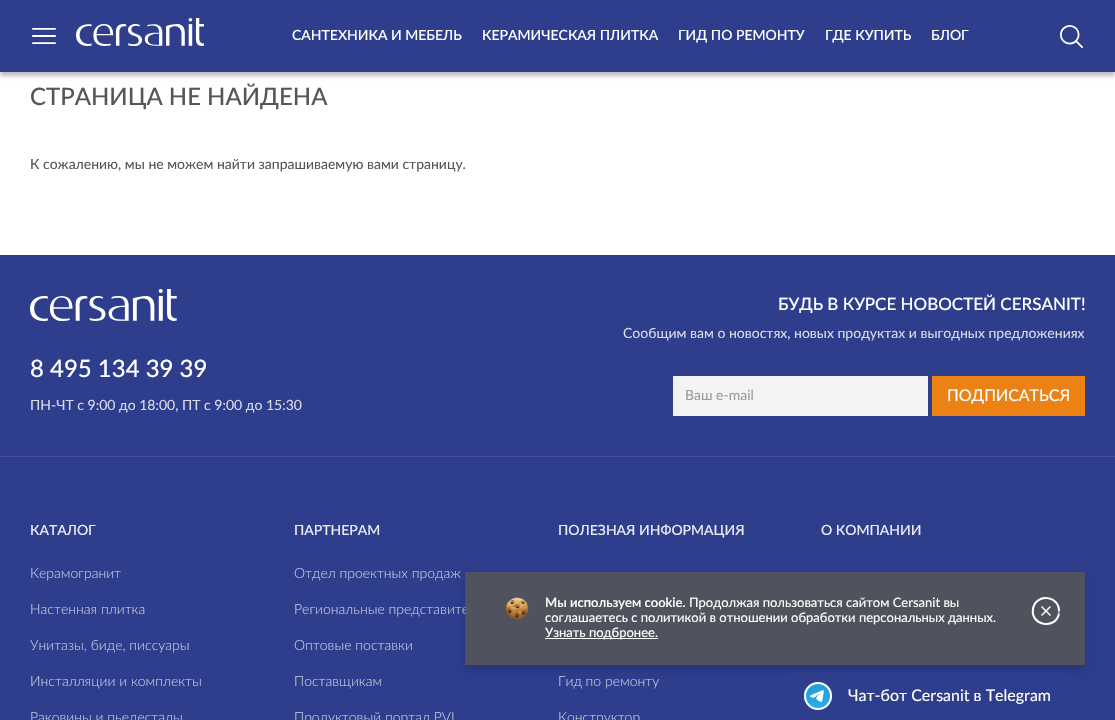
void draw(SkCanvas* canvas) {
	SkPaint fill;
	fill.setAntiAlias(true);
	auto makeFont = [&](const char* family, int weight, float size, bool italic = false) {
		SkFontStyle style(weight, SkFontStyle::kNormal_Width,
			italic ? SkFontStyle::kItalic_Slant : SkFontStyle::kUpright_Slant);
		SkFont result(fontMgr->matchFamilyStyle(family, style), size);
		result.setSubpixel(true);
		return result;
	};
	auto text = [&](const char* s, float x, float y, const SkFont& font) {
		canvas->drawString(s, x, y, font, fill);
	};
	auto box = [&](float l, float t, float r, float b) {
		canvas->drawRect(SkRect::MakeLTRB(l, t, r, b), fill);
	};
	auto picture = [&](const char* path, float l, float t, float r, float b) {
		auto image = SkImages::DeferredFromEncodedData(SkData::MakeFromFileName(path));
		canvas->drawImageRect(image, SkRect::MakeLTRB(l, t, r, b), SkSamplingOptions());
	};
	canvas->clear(0xFFFFFFFF);
	fill.setColor(0x40000000);
	fill.setMaskFilter(SkMaskFilter::MakeBlur(kNormal_SkBlurStyle, 2));
	canvas->drawRect(SkRect::MakeLTRB(0, 4, 1115, 76), fill);
	fill.setMaskFilter(nullptr);
	fill.setColor(0xFF2E3D8C);
	box(0, 0, 1115, 72);
	picture("image0.png", 32, 28, 56, 44);
	picture("image1.png", 76, 18, 204, 46);
	picture("image2.png", 1060, 25, 1083, 48);
	box(0, 255, 1115, 720);
	picture("image3.png", 30, 289, 177, 321);
	fill.setColor(0xFFF3F3F3);
	box(673, 376, 928, 416);
	fill.setColor(0xFFEC8213);
	box(932, 376, 1085, 416);
	fill.setColor(0xFF435098);
	box(0, 456, 1115, 457);
	canvas->save();
	canvas->clipPath(SkPathBuilder(SkPathFillType::kEvenOdd).moveTo(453, 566).lineTo(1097, 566).lineTo(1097, 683).lineTo(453, 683).close().moveTo(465, 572).lineTo(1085, 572).lineTo(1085, 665).lineTo(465, 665).close().detach(), true);
	fill.setColor(0x1F000000);
	fill.setMaskFilter(SkMaskFilter::MakeBlur(kNormal_SkBlurStyle, 3.5f));
	canvas->drawRect(SkRect::MakeLTRB(465, 578, 1085, 671), fill);
	fill.setMaskFilter(nullptr);
	canvas->restore();
	fill.setColor(0xD92E3D8C);
	canvas->drawPath(SkPathBuilder().moveTo(796, 672).lineTo(1059, 672).cubicTo(1068, 672, 1075, 679, 1075, 688).lineTo(1075, 720).lineTo(780, 720).lineTo(780, 688).cubicTo(780, 679, 787, 672, 796, 672).close().detach(), fill);
	canvas->save();
	canvas->clipPath(SkPathBuilder().moveTo(818, 682).cubicTo(825.5f, 682, 832, 688.5f, 832, 696).cubicTo(832, 703.5f, 825.5f, 710, 818, 710).cubicTo(810.5f, 710, 804, 703.5f, 804, 696).cubicTo(804, 688.5f, 810.5f, 682, 818, 682).close().detach(), true);
	{
		const SkColor colors[] = {0xFF2AABEE, 0xFF229ED9};
		const float stops[] = {0, 1};
		const SkPoint ends[] = {{818, 708}, {818, 684}};
		fill.setShader(SkGradientShader::MakeLinear(ends, colors, stops, 2, SkTileMode::kClamp));
		fill.setAlpha(255);
	}
	box(804, 684, 832, 708);
	canvas->restore();
	fill.setStyle(SkPaint::kStroke_Style);
	fill.setStrokeWidth(2);
	fill.setShader(nullptr);
	fill.setColor(0xFFFFFFFF);
	canvas->drawCircle(818, 696, 13, fill);
	picture("image6.png", 810, 690, 824, 702);
	auto font1 = makeFont("Lato", 500, 14);
	fill.setStyle(SkPaint::kFill_Style);
	text("САНТЕХНИКА И МЕБЕЛЬ", 292, 40, font1);
	text("КЕРАМИЧЕСКАЯ ПЛИТКА", 482, 40, font1);
	text("ГИД ПО РЕМОНТУ", 678, 40, font1);
	text("ГДЕ КУПИТЬ", 825, 40, font1);
	text("БЛОГ", 931, 40, font1);
	auto font2 = makeFont("Lato", 500, 24);
	fill.setColor(0xFF565655);
	text("СТРАНИЦА НЕ НАЙДЕНА", 30, 105, font2);
	auto font3 = makeFont("Lato", 400, 14);
	text("К сожалению, мы не можем найти запрашиваемую вами страницу.", 30, 169, font3);
	fill.setColor(0xFFFFFFFF);
	text("8 495 134 39 39", 30, 377, font2);
	fill.setColor(0xFFD8DAE6);
	text("ПН-ЧТ с 9:00 до 18:00, ПТ с 9:00 до 15:30", 30, 410, font3);
	auto font4 = makeFont("Lato", 500, 17);
	fill.setColor(0xFFFFFFFF);
	text("БУДЬ В КУРСЕ НОВОСТЕЙ CERSANIT!", 778, 310, font4);
	fill.setColor(0xFFD8DAE6);
	text("Cообщим вам о новостях, новых продуктах и выгодных предложениях", 623, 338, font3);
	fill.setColor(0xFF9C9C9C);
	text("Ваш e-mail", 685, 400, font3);
	auto font5 = makeFont("Lato", 400, 16);
	fill.setColor(0xFFFFFFFF);
	text("ПОДПИСАТЬСЯ", 947, 401, font5);
	fill.setColor(0xFFEAECF4);
	text("КАТАЛОГ", 30, 535, font1);
	auto font6 = makeFont("Lato", 300, 14);
	fill.setColor(0xFFC4C9DF);
	text("Керамогранит", 30, 578, font6);
	text("Настенная плитка", 30, 614, font6);
	text("Унитазы, биде, писсуары", 30, 650, font6);
	text("Инсталляции и комплекты", 30, 686, font6);
	text("Раковины и пьедесталы", 30, 722, font6);
	fill.setColor(0xFFEAECF4);
	text("ПАРТНЕРАМ", 294, 535, font1);
	fill.setColor(0xFFC4C9DF);
	text("Отдел проектных продаж", 294, 578, font6);
	text("Региональные представите", 294, 614, font6);
	text("Оптовые поставки", 294, 650, font6);
	text("Поставщикам", 294, 686, font6);
	text("Продуктовый портал PVI", 294, 722, font6);
	fill.setColor(0xFFEAECF4);
	text("ПОЛЕЗНАЯ ИНФОРМАЦИЯ", 558, 535, font1);
	fill.setColor(0xFFC4C9DF);
	text("Гид по ремонту", 558, 686, font6);
	text("Конструктор", 558, 722, font6);
	fill.setColor(0xFFEAECF4);
	text("О КОМПАНИИ", 821, 535, font1);
	fill.setColor(0xD9565655);
	box(465, 572, 1085, 665);
	picture("image4.png", 505, 597, 529, 620);
	auto font7 = makeFont("Lato", 600, 13);
	fill.setColor(0xFFFFFFFF);
	text("Мы используем cookie.", 545, 607, font7);
	auto font8 = makeFont("Lato", 400, 13);
	text("Продолжая пользоваться сайтом Cersanit вы", 689, 607, font8);
	text("соглашаетесь с политикой в отношении обработки персональных данных.", 545, 622, font8);
	box(545, 638, 658, 639);
	text("Узнать подбронее.", 545, 637, font8);
	picture("image5.png", 1041, 606, 1051, 616);
	fill.setStyle(SkPaint::kStroke_Style);
	fill.setStrokeWidth(1.9f);
	fill.setColor(0xFFA7A9AE);
	canvas->drawPath(SkPathBuilder().moveTo(1059, 611).cubicTo(1059, 593.5f, 1033, 593.5f, 1033, 611).cubicTo(1033, 628.5f, 1059, 628.5f, 1059, 611).close().detach(), fill);
	fill.setColor(0xFFFFFFFF);
	canvas->drawPath(SkPathBuilder().moveTo(1059, 611).cubicTo(1059, 595.5f, 1036, 593, 1033, 608.5f).cubicTo(1029.5f, 625, 1055, 630.5f, 1059, 614).detach(), fill);
	fill.setStyle(SkPaint::kFill_Style);
	text("Чат-бот Cersanit в Telegram", 848, 701, font5);
}
